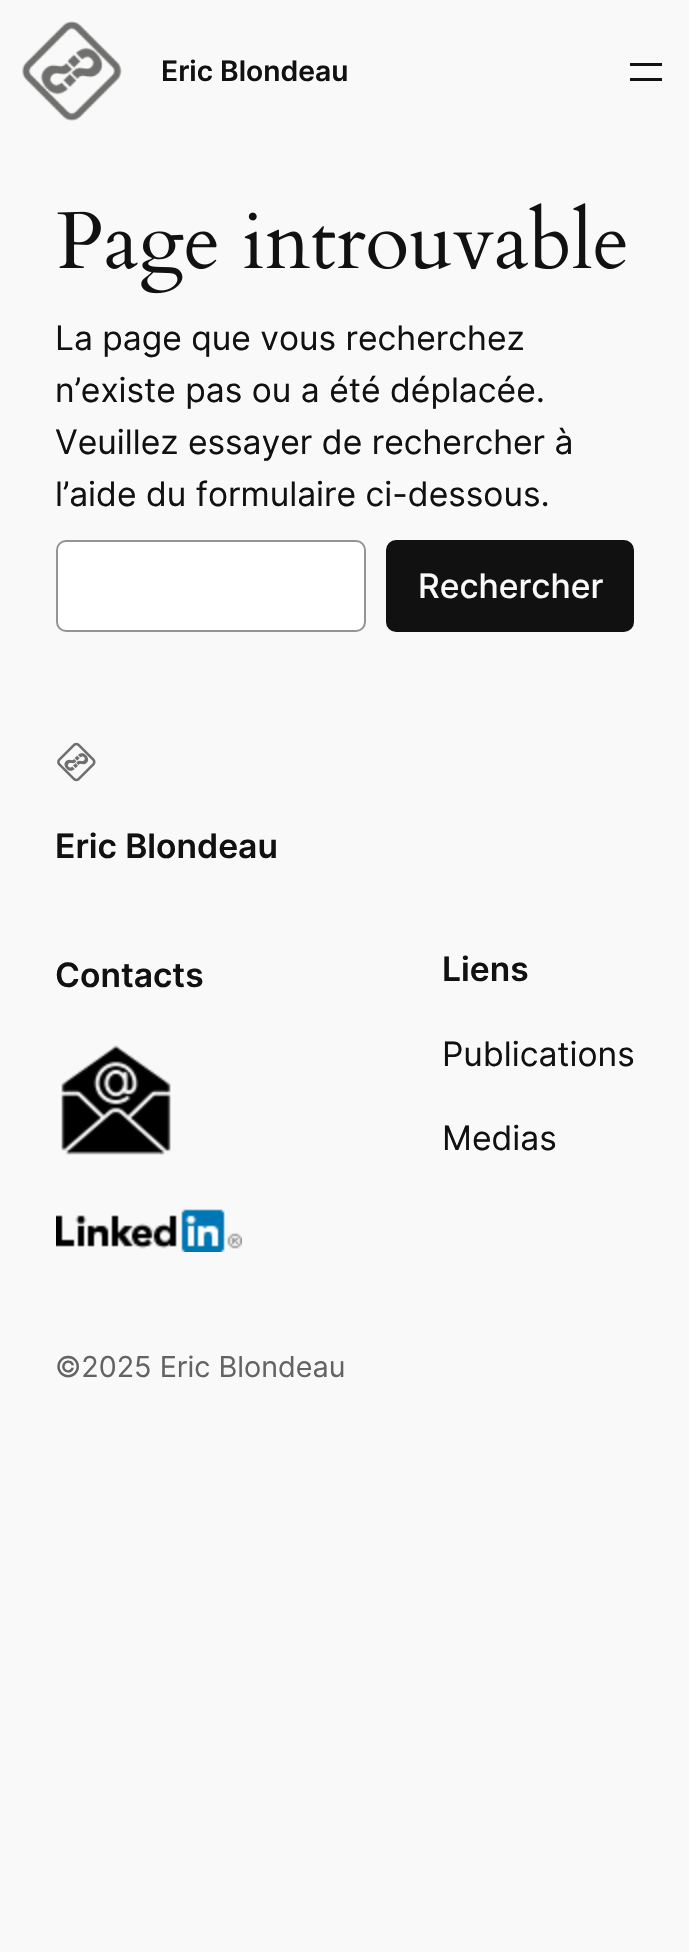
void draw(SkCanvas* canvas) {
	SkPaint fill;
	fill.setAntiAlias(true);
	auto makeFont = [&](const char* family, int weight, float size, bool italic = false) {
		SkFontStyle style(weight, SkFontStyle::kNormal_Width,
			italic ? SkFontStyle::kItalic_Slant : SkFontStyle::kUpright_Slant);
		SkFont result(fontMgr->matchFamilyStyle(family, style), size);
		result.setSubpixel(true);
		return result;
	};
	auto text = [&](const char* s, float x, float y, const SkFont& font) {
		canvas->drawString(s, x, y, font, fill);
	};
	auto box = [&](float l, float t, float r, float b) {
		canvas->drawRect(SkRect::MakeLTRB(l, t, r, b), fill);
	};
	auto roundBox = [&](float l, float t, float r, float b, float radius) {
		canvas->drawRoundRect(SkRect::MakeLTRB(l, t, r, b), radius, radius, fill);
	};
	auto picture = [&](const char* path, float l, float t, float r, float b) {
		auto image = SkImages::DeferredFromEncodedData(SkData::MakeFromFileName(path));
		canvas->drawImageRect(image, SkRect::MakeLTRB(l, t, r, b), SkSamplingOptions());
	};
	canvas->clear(0xFFF9F9F9);
	picture("image0.png", 22, 21, 122, 121);
	fill.setColor(0xFF111111);
	box(630, 63, 662, 66);
	box(630, 78, 662, 81);
	picture("image1.png", 57, 203, 626, 294);
	fill.setColor(0xFFFFFFFF);
	canvas->drawRoundRect(SkRect::MakeLTRB(57, 541, 365, 631), 9, 9, fill);
	fill.setStyle(SkPaint::kStroke_Style);
	fill.setStrokeWidth(2);
	fill.setColor(0xFF949494);
	canvas->drawRoundRect(SkRect::MakeLTRB(57, 541, 365, 631), 9, 9, fill);
	fill.setStyle(SkPaint::kFill_Style);
	fill.setColor(0xFF111111);
	roundBox(386, 540, 634, 632, 10);
	picture("image2.png", 57, 742, 96, 782);
	picture("image3.png", 61, 1045, 171, 1155);
	picture("image4.png", 56, 1209, 242, 1252);
	auto font1 = makeFont("Inter", 600, 28.25f);
	text("Eric Blondeau", 161, 81, font1);
	auto font2 = makeFont("Inter", 400, 33.6f);
	text("La page que vous recherchez", 55, 350, font2);
	text("n’existe pas ou a été déplacée.", 55, 402, font2);
	text("Veuillez essayer de rechercher à", 55, 454, font2);
	text("l’aide du formulaire ci-dessous.", 55, 506, font2);
	auto font3 = makeFont("Inter", 500, 33.6f);
	fill.setColor(0xFFF9F9F9);
	text("Rechercher", 418, 598, font3);
	auto font4 = makeFont("Inter", 600, 33.6f);
	fill.setColor(0xFF111111);
	text("Eric Blondeau", 55, 858, font4);
	text("Contacts", 55, 987, font4);
	text("Liens", 442, 981, font4);
	text("Publications", 442, 1066, font2);
	text("Medias", 442, 1150, font2);
	auto font5 = makeFont("Inter", 400, 28.75f);
	fill.setColor(0xFF636363);
	text("©2025 Eric Blondeau", 55, 1377, font5);
}
